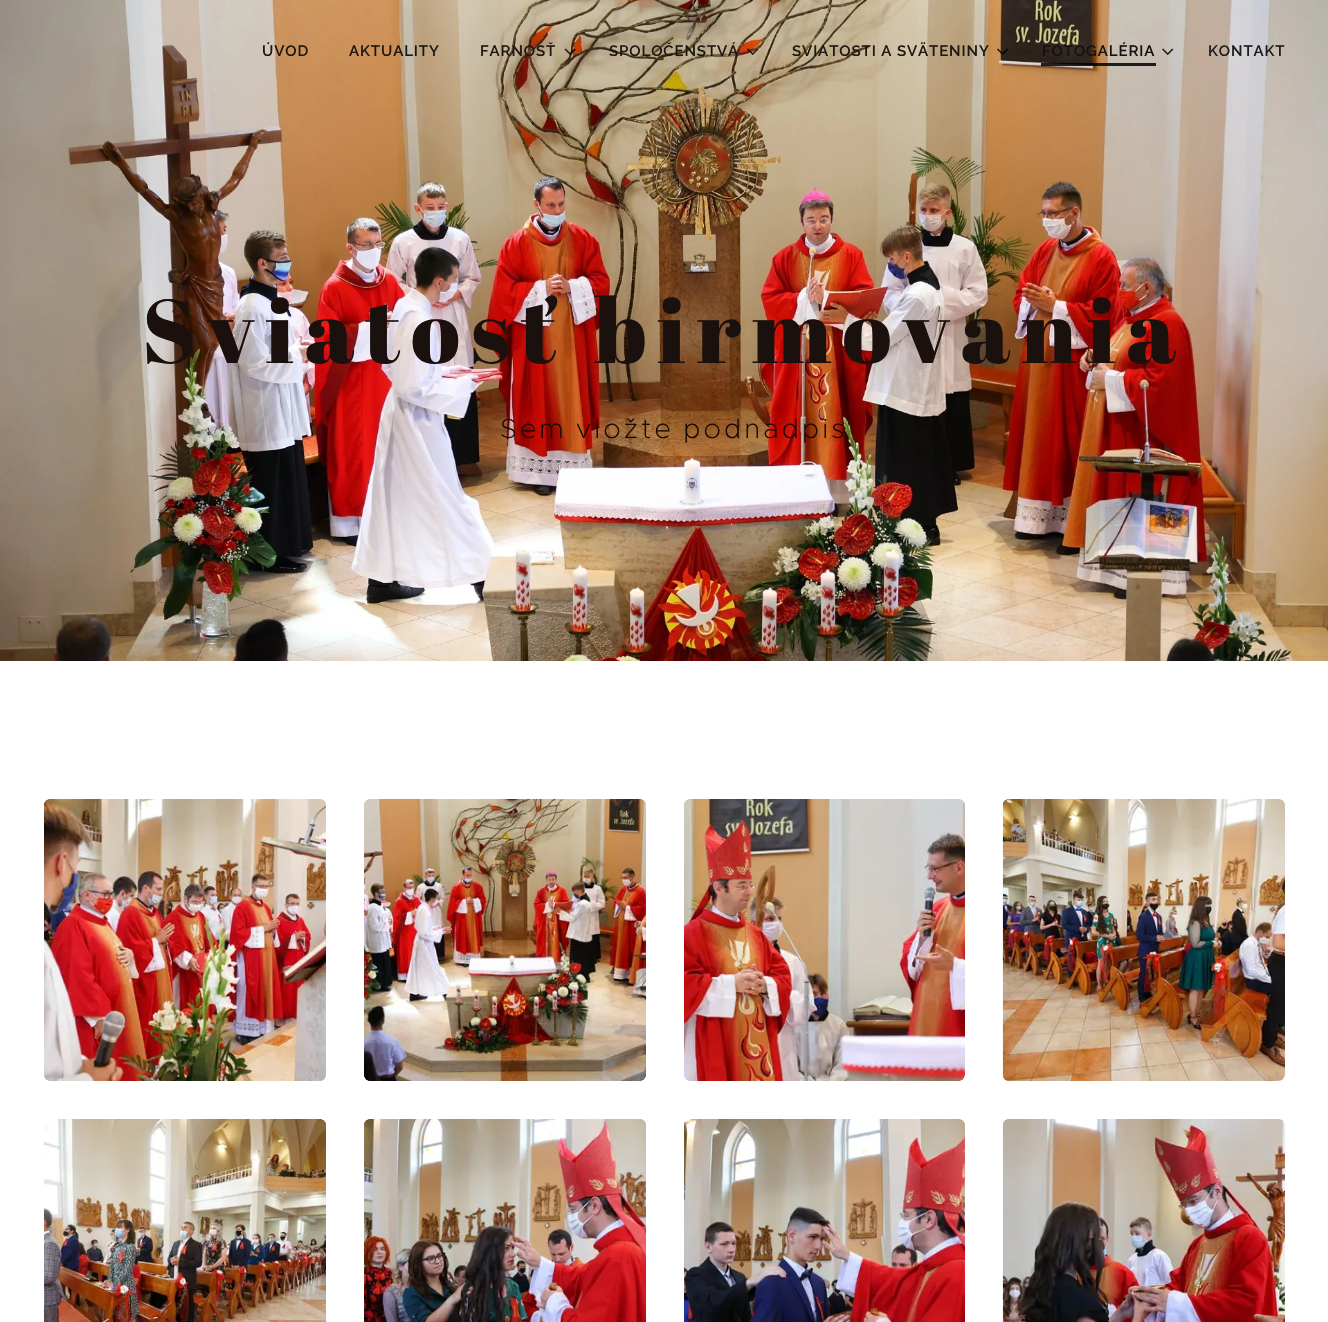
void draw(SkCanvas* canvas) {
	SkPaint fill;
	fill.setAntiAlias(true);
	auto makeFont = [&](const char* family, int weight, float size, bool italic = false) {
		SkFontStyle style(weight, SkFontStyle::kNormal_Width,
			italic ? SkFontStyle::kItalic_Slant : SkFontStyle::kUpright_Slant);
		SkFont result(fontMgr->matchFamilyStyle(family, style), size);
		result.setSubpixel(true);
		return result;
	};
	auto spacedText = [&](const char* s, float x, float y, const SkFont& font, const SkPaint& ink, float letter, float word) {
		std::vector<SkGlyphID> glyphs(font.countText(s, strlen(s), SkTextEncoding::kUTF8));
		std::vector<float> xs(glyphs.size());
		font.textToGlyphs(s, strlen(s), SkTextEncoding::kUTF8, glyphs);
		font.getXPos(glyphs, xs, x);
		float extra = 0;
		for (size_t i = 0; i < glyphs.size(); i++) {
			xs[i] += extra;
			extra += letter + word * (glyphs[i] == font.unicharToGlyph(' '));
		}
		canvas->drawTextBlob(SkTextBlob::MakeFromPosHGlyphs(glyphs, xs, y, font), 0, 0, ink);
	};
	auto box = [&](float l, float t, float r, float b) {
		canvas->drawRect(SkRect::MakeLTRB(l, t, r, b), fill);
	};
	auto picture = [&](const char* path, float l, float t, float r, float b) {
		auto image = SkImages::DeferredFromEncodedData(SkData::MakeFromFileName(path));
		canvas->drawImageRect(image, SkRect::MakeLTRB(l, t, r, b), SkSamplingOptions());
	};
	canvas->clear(0xFFFFFFFF);
	picture("image4.png", 0, 0, 1328, 661);
	picture("image0.png", 564, 48, 576, 55);
	picture("image1.png", 747, 48, 759, 55);
	picture("image2.png", 997, 48, 1009, 55);
	fill.setColor(0xD9000000);
	box(1041, 63, 1099, 66);
	box(1099, 63, 1156, 66);
	picture("image3.png", 1162, 48, 1174, 55);
	picture("image5.png", 44, 799, 326, 1081);
	picture("image6.png", 364, 799, 646, 1081);
	picture("image7.png", 684, 799, 965, 1081);
	picture("image8.png", 1002, 799, 1285, 1081);
	picture("image9.png", 44, 1119, 326, 1322);
	picture("image10.png", 364, 1119, 646, 1322);
	picture("image11.png", 684, 1119, 965, 1322);
	picture("image12.png", 1002, 1119, 1285, 1322);
	auto font1 = makeFont("Raleway", 600, 15);
	fill.setColor(0xFF1F1812);
	spacedText("ÚVOD", 262, 56, font1, fill, 0.9f, 0);
	spacedText("AKTUALITY", 349, 56, font1, fill, 0.9f, 0);
	spacedText("FARNOSŤ", 480, 56, font1, fill, 0.9f, 0);
	spacedText("SPOLOČENSTVÁ", 609, 56, font1, fill, 0.9f, 0);
	spacedText("SVIATOSTI A SVÄTENINY", 792, 56, font1, fill, 0.9f, 0);
	fill.setColor(0xFF14110F);
	spacedText("FOTOGALÉRIA", 1042, 56, font1, fill, 0.9f, 0);
	fill.setColor(0xFF1E1D1C);
	spacedText("KONTAKT", 1208, 56, font1, fill, 0.9f, 0);
	auto font2 = makeFont("Abril Fatface", 400, 90);
	fill.setColor(0xFF1A100E);
	spacedText("Sviatosť birmovania", 142, 363, font2, fill, 10.75f, 0);
	auto font3 = makeFont("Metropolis", 200, 27.5f);
	fill.setColor(0xFF190A05);
	spacedText("Sem vložte podnadpis", 500, 438, font3, fill, 3.25f, -2);
}
